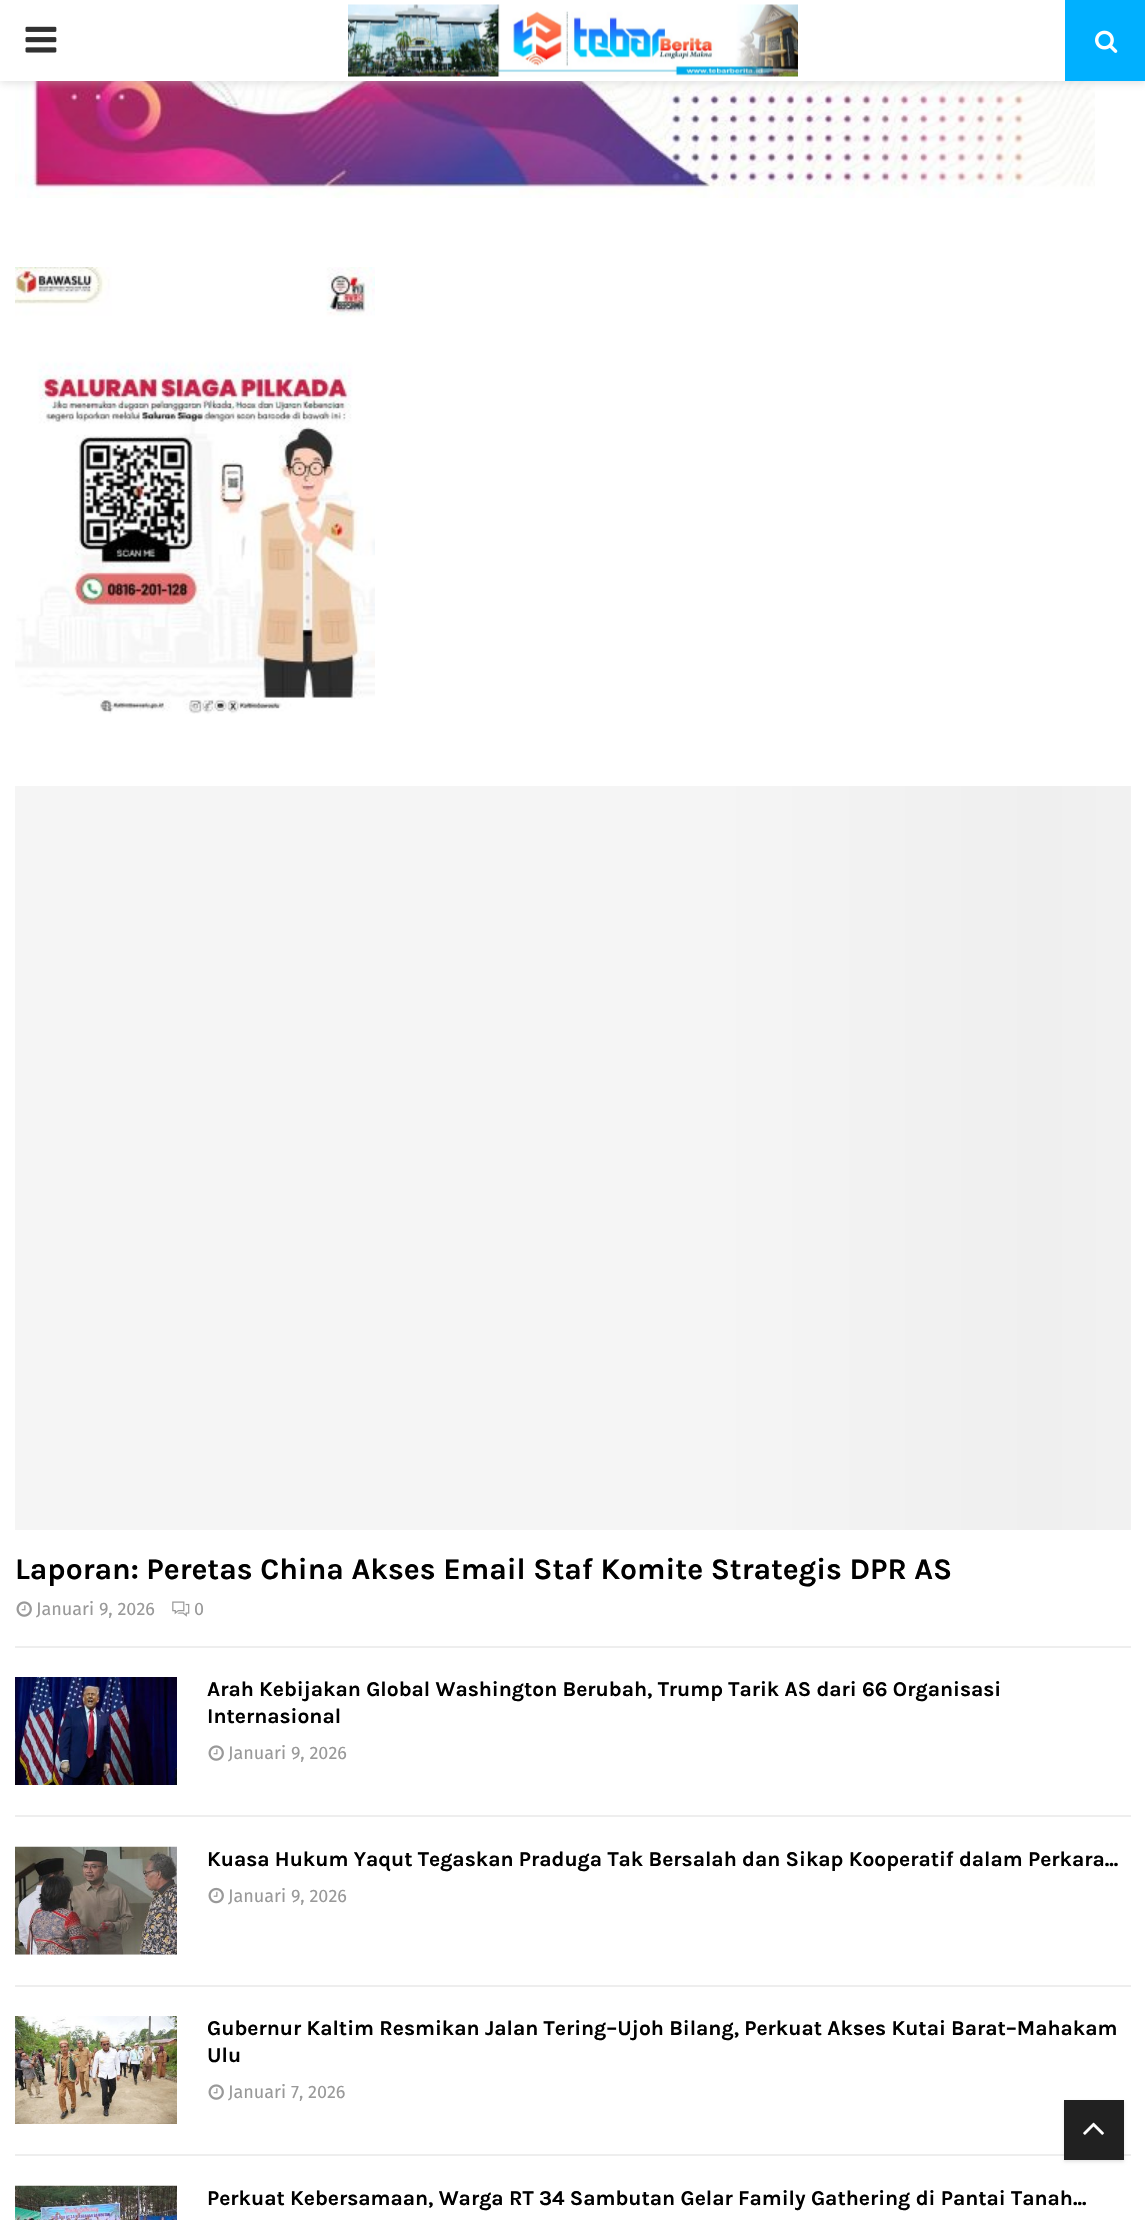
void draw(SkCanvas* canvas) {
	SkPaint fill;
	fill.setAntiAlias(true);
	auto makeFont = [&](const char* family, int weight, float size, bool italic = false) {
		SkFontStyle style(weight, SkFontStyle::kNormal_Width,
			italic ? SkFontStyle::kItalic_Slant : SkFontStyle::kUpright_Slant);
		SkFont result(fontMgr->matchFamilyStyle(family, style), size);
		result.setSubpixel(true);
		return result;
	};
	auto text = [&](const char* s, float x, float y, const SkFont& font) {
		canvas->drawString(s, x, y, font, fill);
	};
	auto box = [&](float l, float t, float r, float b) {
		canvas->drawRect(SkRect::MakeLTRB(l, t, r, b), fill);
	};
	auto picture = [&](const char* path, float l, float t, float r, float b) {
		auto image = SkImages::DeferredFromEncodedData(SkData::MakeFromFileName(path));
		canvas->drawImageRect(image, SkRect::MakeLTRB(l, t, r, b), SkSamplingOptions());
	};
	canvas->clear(0xFFFFFFFF);
	picture("image3.png", 15, 81, 1095, 198);
	fill.setColor(0x75BEBEBE);
	fill.setMaskFilter(SkMaskFilter::MakeBlur(kNormal_SkBlurStyle, 4));
	canvas->drawRect(SkRect::MakeLTRB(0, 2, 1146, 83), fill);
	fill.setMaskFilter(nullptr);
	fill.setColor(0xFFFFFFFF);
	box(0, 0, 1065, 81);
	picture("image0.png", 25, 26, 57, 53);
	picture("image1.png", 348, 4, 798, 77);
	fill.setColor(0xFF00B0FF);
	box(1065, 0, 1145, 81);
	picture("image2.png", 1095, 30, 1118, 53);
	picture("image4.png", 15, 267, 375, 714);
	fill.setColor(0xFFEEEEEE);
	box(15, 1646, 1131, 1648);
	{
		const SkColor colors[] = {0xFFF5F5F5, 0xFFEFEFEF, 0xFFF5F5F5, 0xFFF5F5F5};
		const float stops[] = {0, 0.15f, 0.4f, 1};
		const SkPoint ends[] = {{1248, 1158}, {-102, 1158}};
		fill.setShader(SkGradientShader::MakeLinear(ends, colors, stops, 4, SkTileMode::kClamp));
		fill.setAlpha(255);
	}
	box(15, 786, 1131, 1530);
	picture("image5.png", 16, 1601, 32, 1617);
	picture("image6.png", 172, 1601, 190, 1617);
	fill.setShader(nullptr);
	fill.setColor(0xFFEEEEEE);
	box(15, 1815, 1131, 1817);
	picture("image7.png", 15, 1677, 177, 1785);
	picture("image5.png", 208, 1745, 224, 1761);
	box(15, 1985, 1131, 1987);
	fill.setColor(0xFFF5F5F5);
	box(15, 1954, 177, 1955);
	picture("image8.png", 15, 1846, 177, 1955);
	picture("image9.png", 208, 1887, 224, 1904);
	fill.setColor(0xFFEEEEEE);
	box(15, 2154, 1131, 2156);
	picture("image10.png", 15, 2016, 177, 2124);
	picture("image5.png", 208, 2084, 224, 2100);
	picture("image11.png", 15, 2185, 177, 2220);
	fill.setColor(0x1A000000);
	fill.setMaskFilter(SkMaskFilter::MakeBlur(kNormal_SkBlurStyle, 1.5f));
	canvas->drawRect(SkRect::MakeLTRB(1064, 2102, 1124, 2162), fill);
	fill.setMaskFilter(nullptr);
	fill.setColor(0xFF212121);
	box(1064, 2100, 1124, 2160);
	picture("image12.png", 1083, 2122, 1104, 2135);
	auto font1 = makeFont("Karla", 700, 30);
	fill.setColor(0xFF000000);
	text("Laporan: Peretas China Akses Email Staf Komite Strategis DPR AS", 15, 1579, font1);
	auto font2 = makeFont("Fira Sans", 400, 18);
	fill.setColor(0xFF999999);
	text("Januari 9, 2026", 36, 1615, font2);
	text("0", 194, 1615, font2);
	auto font3 = makeFont("Karla", 700, 21);
	fill.setColor(0xFF000000);
	text("Arah Kebijakan Global Washington Berubah, Trump Tarik AS dari 66 Organisasi", 207, 1696, font3);
	text("Internasional", 207, 1723, font3);
	fill.setColor(0xFF999999);
	text("Januari 9, 2026", 228, 1759, font2);
	fill.setColor(0xFF000000);
	text("Kuasa Hukum Yaqut Tegaskan Praduga Tak Bersalah dan Sikap Kooperatif dalam Perkara...", 207, 1866, font3);
	fill.setColor(0xFF999999);
	text("Januari 9, 2026", 228, 1902, font2);
	fill.setColor(0xFF000000);
	text("Gubernur Kaltim Resmikan Jalan Tering–Ujoh Bilang, Perkuat Akses Kutai Barat–Mahakam", 207, 2035, font3);
	text("Ulu", 207, 2062, font3);
	fill.setColor(0xFF999999);
	text("Januari 7, 2026", 228, 2098, font2);
	fill.setColor(0xFF000000);
	text("Perkuat Kebersamaan, Warga RT 34 Sambutan Gelar Family Gathering di Pantai Tanah...", 207, 2205, font3);
}
